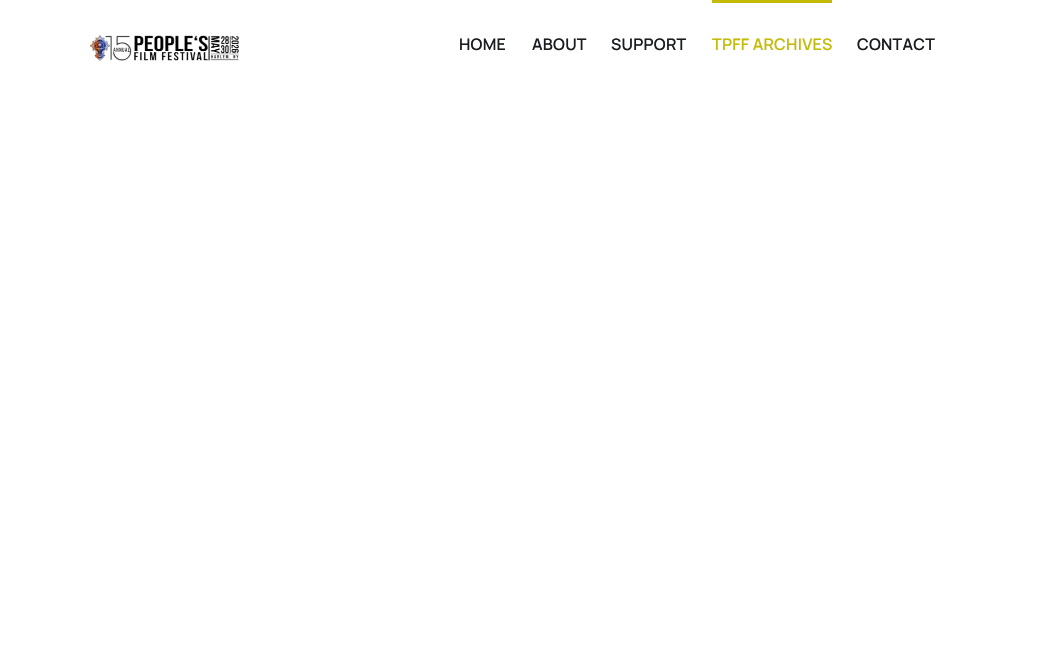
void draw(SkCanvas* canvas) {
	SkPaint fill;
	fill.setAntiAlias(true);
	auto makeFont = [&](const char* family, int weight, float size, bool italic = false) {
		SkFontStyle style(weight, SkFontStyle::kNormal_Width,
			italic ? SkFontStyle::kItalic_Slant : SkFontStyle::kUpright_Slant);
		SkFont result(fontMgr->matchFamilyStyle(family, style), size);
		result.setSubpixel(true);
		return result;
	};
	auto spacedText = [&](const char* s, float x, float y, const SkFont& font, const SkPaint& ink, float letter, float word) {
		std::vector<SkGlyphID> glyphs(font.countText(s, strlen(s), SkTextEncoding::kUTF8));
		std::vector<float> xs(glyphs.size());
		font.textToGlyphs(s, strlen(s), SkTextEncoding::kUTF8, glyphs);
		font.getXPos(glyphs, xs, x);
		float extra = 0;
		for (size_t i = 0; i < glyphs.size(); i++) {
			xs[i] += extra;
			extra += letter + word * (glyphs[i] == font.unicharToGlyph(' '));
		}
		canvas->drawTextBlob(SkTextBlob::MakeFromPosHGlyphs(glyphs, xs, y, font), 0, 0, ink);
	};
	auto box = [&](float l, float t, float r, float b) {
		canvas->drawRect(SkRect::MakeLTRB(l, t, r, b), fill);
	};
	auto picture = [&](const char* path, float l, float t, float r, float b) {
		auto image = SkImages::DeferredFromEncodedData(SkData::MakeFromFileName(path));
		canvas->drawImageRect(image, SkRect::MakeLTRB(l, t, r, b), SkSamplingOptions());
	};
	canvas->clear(0xFFFFFFFF);
	picture("image0.png", 90, 35, 239, 61);
	fill.setColor(0xFFC4BB09);
	box(712, 0, 832, 3);
	auto font1 = makeFont("Manrope", 600, 16);
	fill.setColor(0xFF191D21);
	spacedText("HOME", 459, 50, font1, fill, 0.25f, 0);
	spacedText("ABOUT", 532, 50, font1, fill, 0.25f, 0);
	spacedText("SUPPORT", 611, 50, font1, fill, 0.25f, 0);
	fill.setColor(0xFFC4BB09);
	spacedText("TPFF ARCHIVES", 712, 50, font1, fill, 0.25f, 0);
	fill.setColor(0xFF191D21);
	spacedText("CONTACT", 857, 50, font1, fill, 0.25f, 0);
}
